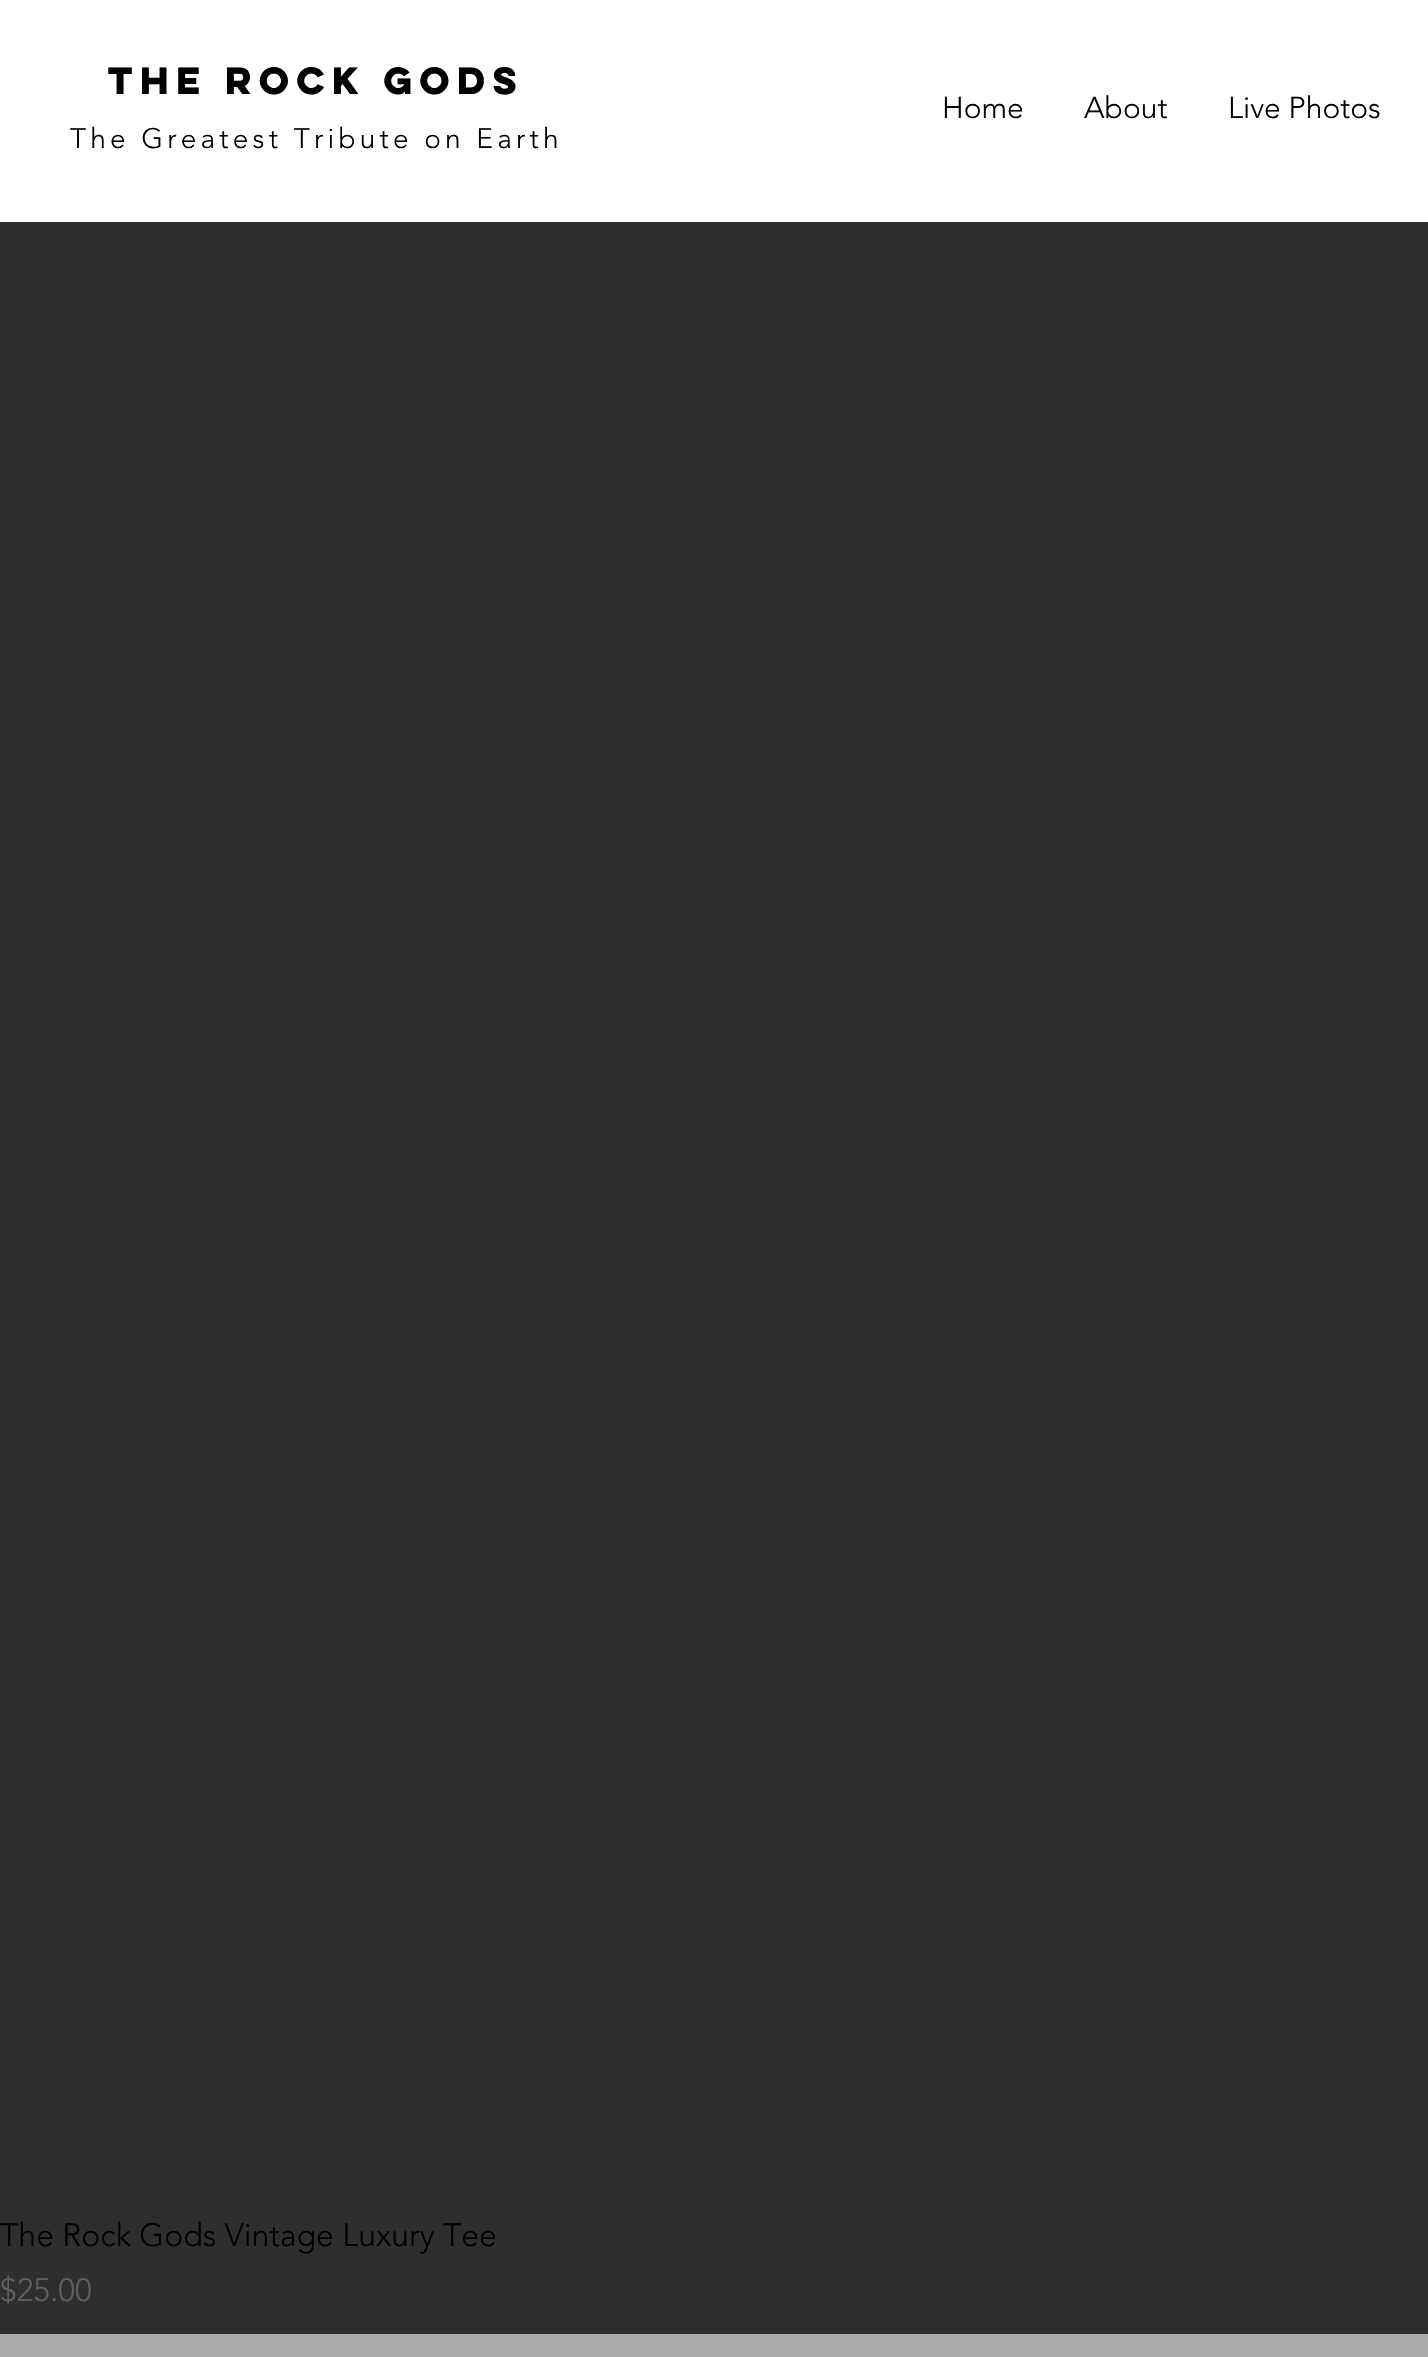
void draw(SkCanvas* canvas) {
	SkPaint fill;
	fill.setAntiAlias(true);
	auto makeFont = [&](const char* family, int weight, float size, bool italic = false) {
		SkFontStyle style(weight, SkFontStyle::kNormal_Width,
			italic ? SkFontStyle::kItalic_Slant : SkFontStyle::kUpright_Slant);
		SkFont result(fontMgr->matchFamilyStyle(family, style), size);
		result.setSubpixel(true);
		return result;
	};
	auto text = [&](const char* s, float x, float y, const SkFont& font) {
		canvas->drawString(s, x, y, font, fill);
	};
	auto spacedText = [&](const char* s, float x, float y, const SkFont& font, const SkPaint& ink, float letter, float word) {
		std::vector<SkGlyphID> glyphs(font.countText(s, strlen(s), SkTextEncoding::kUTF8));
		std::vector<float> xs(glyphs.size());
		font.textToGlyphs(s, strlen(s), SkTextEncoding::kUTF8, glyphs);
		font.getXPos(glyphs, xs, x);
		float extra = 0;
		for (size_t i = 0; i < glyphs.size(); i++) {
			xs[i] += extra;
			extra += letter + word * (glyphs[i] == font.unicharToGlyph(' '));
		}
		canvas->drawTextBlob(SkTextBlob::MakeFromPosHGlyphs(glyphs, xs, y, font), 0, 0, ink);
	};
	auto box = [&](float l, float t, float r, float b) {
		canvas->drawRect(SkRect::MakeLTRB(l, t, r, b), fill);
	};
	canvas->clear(0xFF2F2E2E);
	fill.setColor(0xFFFFFFFF);
	box(0, 0, 1428, 222);
	fill.setColor(0xFFACABAB);
	box(0, 2334, 1428, 2357);
	auto font1 = makeFont("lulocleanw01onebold", 700, 34);
	fill.setColor(0xFF000000);
	text("The Rock Gods", 108, 94, font1);
	auto font2 = makeFont("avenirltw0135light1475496", 300, 30);
	text("Home", 942, 118, font2);
	text("About", 1084, 118, font2);
	text("Live Photos", 1228, 118, font2);
	auto font3 = makeFont("avenirltw0135light1475496", 300, 28);
	spacedText("The Greatest Tribute on Earth", 70, 148, font3, fill, 4.2f, 0);
	auto font4 = makeFont("avenirltw0135light1475496", 300, 32);
	text("The Rock Gods Vintage Luxury Tee", 0, 2246, font4);
	fill.setColor(0xFF605E5E);
	text("$25.00", 0, 2301, font4);
}
